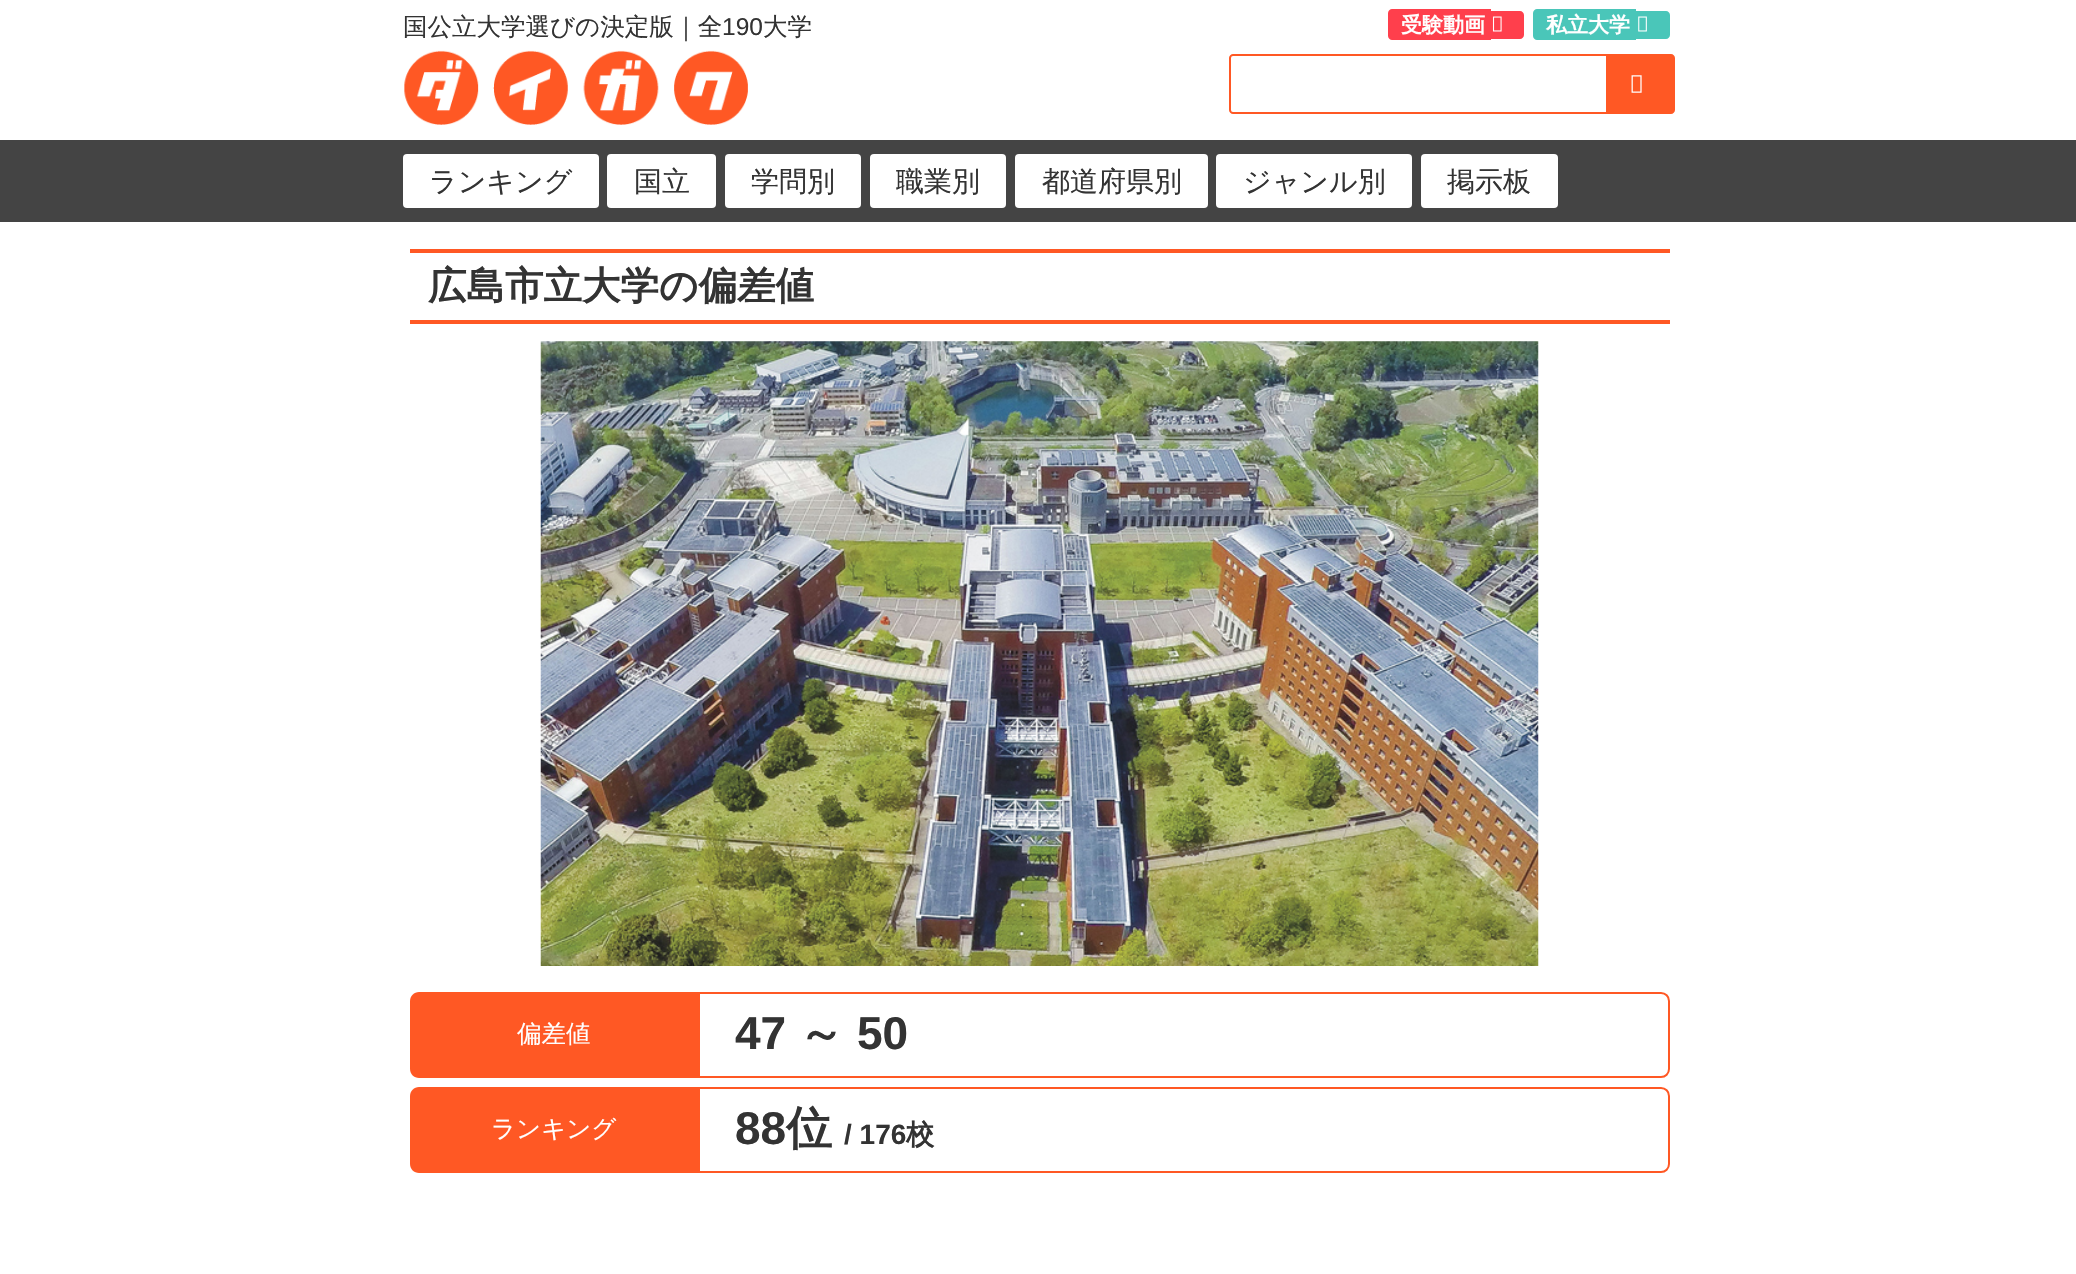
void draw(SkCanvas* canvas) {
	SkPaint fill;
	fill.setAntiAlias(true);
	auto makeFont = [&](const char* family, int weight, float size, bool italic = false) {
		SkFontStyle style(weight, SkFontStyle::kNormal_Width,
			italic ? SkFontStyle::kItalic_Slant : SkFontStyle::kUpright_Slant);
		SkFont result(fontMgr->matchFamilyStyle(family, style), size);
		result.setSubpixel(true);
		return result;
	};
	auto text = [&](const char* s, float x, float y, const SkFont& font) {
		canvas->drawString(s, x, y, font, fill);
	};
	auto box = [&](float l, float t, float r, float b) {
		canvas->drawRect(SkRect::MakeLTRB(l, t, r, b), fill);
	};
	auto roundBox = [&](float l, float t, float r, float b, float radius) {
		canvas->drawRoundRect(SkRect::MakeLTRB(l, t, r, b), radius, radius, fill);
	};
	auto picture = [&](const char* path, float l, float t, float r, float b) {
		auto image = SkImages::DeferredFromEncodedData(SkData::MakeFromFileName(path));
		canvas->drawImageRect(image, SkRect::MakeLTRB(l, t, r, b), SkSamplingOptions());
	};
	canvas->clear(0xFFFFFFFF);
	fill.setColor(0xFFFF3F4C);
	canvas->drawPath(SkPathBuilder().moveTo(1392, 9).lineTo(1491, 9).lineTo(1491, 40).lineTo(1392, 40).cubicTo(1390, 40, 1388, 38, 1388, 36).lineTo(1388, 13).cubicTo(1388, 11, 1390, 9, 1392, 9).close().detach(), fill);
	canvas->drawPath(SkPathBuilder().moveTo(1491, 11).lineTo(1520, 11).cubicTo(1522, 11, 1524, 13, 1524, 15).lineTo(1524, 35).cubicTo(1524, 37, 1522, 39, 1520, 39).lineTo(1491, 39).close().detach(), fill);
	picture("image0.png", 1492, 16, 1502, 32);
	fill.setColor(0xFF4AC6B9);
	canvas->drawPath(SkPathBuilder().moveTo(1537, 9).lineTo(1636, 9).lineTo(1636, 40).lineTo(1537, 40).cubicTo(1535, 40, 1533, 38, 1533, 36).lineTo(1533, 13).cubicTo(1533, 11, 1535, 9, 1537, 9).close().detach(), fill);
	canvas->drawPath(SkPathBuilder().moveTo(1636, 11).lineTo(1666, 11).cubicTo(1668, 11, 1670, 13, 1670, 15).lineTo(1670, 35).cubicTo(1670, 37, 1668, 39, 1666, 39).lineTo(1636, 39).close().detach(), fill);
	picture("image1.png", 1638, 16, 1647, 32);
	picture("image2.png", 404, 50, 748, 125);
	fill.setStyle(SkPaint::kStroke_Style);
	fill.setStrokeWidth(2);
	fill.setColor(0xFFFF5824);
	canvas->drawPath(SkPathBuilder().moveTo(1233, 55).lineTo(1607, 55).lineTo(1607, 113).lineTo(1233, 113).cubicTo(1231.5f, 113, 1230, 111.5f, 1230, 110).lineTo(1230, 58).cubicTo(1230, 56.5f, 1231.5f, 55, 1233, 55).close().detach(), fill);
	fill.setStyle(SkPaint::kFill_Style);
	canvas->drawPath(SkPathBuilder().moveTo(1608, 54).lineTo(1671, 54).cubicTo(1673, 54, 1675, 56, 1675, 58).lineTo(1675, 110).cubicTo(1675, 112, 1673, 114, 1671, 114).lineTo(1608, 114).close().detach(), fill);
	picture("image3.png", 1631, 75, 1642, 93);
	fill.setColor(0xFF444444);
	box(0, 140, 2076, 222);
	fill.setColor(0xFFFFFFFF);
	roundBox(403, 154, 599, 208, 4);
	roundBox(607, 154, 716, 208, 4);
	roundBox(725, 154, 861, 208, 4);
	roundBox(870, 154, 1006, 208, 4);
	roundBox(1015, 154, 1208, 208, 4);
	roundBox(1216, 154, 1412, 208, 4);
	roundBox(1421, 154, 1558, 208, 4);
	fill.setColor(0xFFFF5824);
	box(410, 249, 1670, 253);
	box(410, 320, 1670, 324);
	picture("image4.png", 540, 341, 1539, 966);
	canvas->drawPath(SkPathBuilder().moveTo(419, 992).lineTo(698, 992).lineTo(698, 1078).lineTo(419, 1078).cubicTo(414, 1078, 410, 1074, 410, 1069).lineTo(410, 1001).cubicTo(410, 996, 414, 992, 419, 992).close().detach(), fill);
	fill.setStyle(SkPaint::kStroke_Style);
	canvas->drawPath(SkPathBuilder().moveTo(699, 993).lineTo(1661, 993).cubicTo(1665.5f, 993, 1669, 996.5f, 1669, 1001).lineTo(1669, 1069).cubicTo(1669, 1073.5f, 1665.5f, 1077, 1661, 1077).lineTo(699, 1077).close().detach(), fill);
	fill.setStyle(SkPaint::kFill_Style);
	canvas->drawPath(SkPathBuilder().moveTo(419, 1087).lineTo(698, 1087).lineTo(698, 1173).lineTo(419, 1173).cubicTo(414, 1173, 410, 1169, 410, 1164).lineTo(410, 1096).cubicTo(410, 1091, 414, 1087, 419, 1087).close().detach(), fill);
	fill.setStyle(SkPaint::kStroke_Style);
	canvas->drawPath(SkPathBuilder().moveTo(699, 1088).lineTo(1661, 1088).cubicTo(1665.5f, 1088, 1669, 1091.5f, 1669, 1096).lineTo(1669, 1164).cubicTo(1669, 1168.5f, 1665.5f, 1172, 1661, 1172).lineTo(699, 1172).close().detach(), fill);
	auto font1 = makeFont("WenQuanYi Zen Hei", 500, 24.5f);
	fill.setStyle(SkPaint::kFill_Style);
	fill.setColor(0xFF333333);
	text("国公立大学選びの決定版｜全", 403, 35, font1);
	auto font2 = makeFont("Liberation Sans", 400, 24.5f);
	text("190", 722, 35, font2);
	text("大学", 763, 35, font1);
	auto font3 = makeFont("WenQuanYi Zen Hei", 700, 21);
	fill.setColor(0xFFFFFFFF);
	text("受験動画", 1401, 32, font3);
	text("私立大学", 1546, 32, font3);
	auto font4 = makeFont("WenQuanYi Zen Hei", 500, 28);
	fill.setColor(0xFF333333);
	text("ランキング", 429, 191, font4);
	text("国立", 634, 191, font4);
	text("学問別", 751, 191, font4);
	text("職業別", 896, 191, font4);
	text("都道府県別", 1042, 191, font4);
	text("ジャンル別", 1243, 191, font4);
	text("掲示板", 1447, 191, font4);
	auto font5 = makeFont("WenQuanYi Zen Hei", 700, 38.5f);
	text("広島市立大学の偏差値", 428, 299, font5);
	fill.setColor(0xFFFFFFFF);
	text("偏差値", 517, 1042, font1);
	auto font6 = makeFont("Liberation Sans", 700, 46);
	fill.setColor(0xFF333333);
	text("47", 735, 1049, font6);
	auto font7 = makeFont("WenQuanYi Zen Hei", 700, 46);
	text("～", 798, 1049, font7);
	text("50", 857, 1049, font6);
	fill.setColor(0xFFFFFFFF);
	text("ランキング", 491, 1137, font1);
	fill.setColor(0xFF333333);
	text("88", 735, 1144, font6);
	text("位", 786, 1144, font7);
	auto font8 = makeFont("Liberation Sans", 700, 28);
	text("/ 176", 844, 1144, font8);
	auto font9 = makeFont("WenQuanYi Zen Hei", 700, 28);
	text("校", 906, 1144, font9);
}
